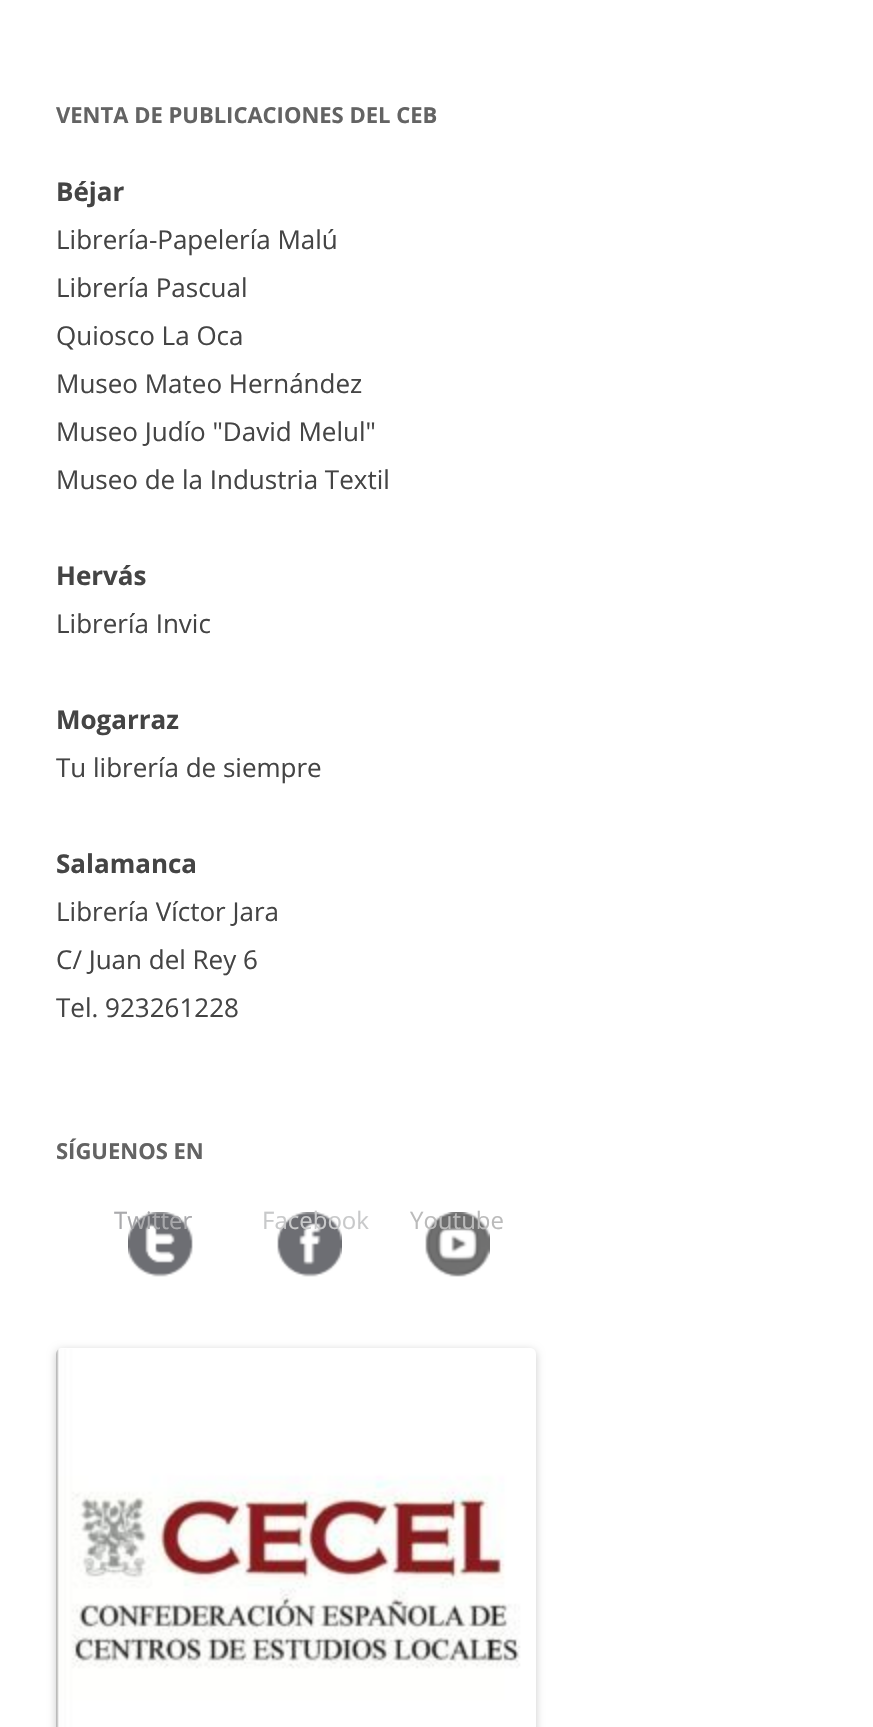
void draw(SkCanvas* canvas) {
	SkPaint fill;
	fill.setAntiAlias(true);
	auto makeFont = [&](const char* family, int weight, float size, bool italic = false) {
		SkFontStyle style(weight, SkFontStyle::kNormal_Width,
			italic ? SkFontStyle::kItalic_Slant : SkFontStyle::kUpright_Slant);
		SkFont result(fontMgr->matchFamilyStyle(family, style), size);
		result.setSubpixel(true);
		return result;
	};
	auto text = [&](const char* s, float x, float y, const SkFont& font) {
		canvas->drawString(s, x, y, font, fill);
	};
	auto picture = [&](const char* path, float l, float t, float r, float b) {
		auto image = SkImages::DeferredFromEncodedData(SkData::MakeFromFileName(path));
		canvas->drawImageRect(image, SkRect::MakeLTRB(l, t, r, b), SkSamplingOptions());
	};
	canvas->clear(0xFFFFFFFF);
	picture("image0.png", 128, 1212, 193, 1277);
	picture("image1.png", 277, 1212, 342, 1277);
	picture("image2.png", 425, 1212, 490, 1277);
	canvas->save();
	canvas->clipPath(SkPathBuilder(SkPathFillType::kEvenOdd).moveTo(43, 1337).lineTo(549, 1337).lineTo(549, 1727).lineTo(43, 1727).close().moveTo(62, 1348).lineTo(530, 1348).cubicTo(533.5f, 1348, 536, 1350.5f, 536, 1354).lineTo(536, 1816).cubicTo(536, 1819.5f, 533.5f, 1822, 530, 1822).lineTo(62, 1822).cubicTo(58.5f, 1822, 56, 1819.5f, 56, 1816).lineTo(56, 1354).cubicTo(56, 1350.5f, 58.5f, 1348, 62, 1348).close().detach(), true);
	fill.setColor(0x33000000);
	fill.setMaskFilter(SkMaskFilter::MakeBlur(kNormal_SkBlurStyle, 4));
	canvas->drawRoundRect(SkRect::MakeLTRB(56, 1350, 536, 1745), 6, 6, fill);
	fill.setMaskFilter(nullptr);
	canvas->restore();
	picture("image3.png", 56, 1349, 521, 1727);
	auto font1 = makeFont("Open Sans", 700, 22);
	fill.setColor(0xFF636363);
	text("VENTA DE PUBLICACIONES DEL CEB", 56, 123, font1);
	auto font2 = makeFont("Open Sans", 700, 26);
	fill.setColor(0xFF444444);
	text("Béjar", 56, 201, font2);
	auto font3 = makeFont("Open Sans", 400, 26);
	text("Librería-Papelería Malú", 56, 249, font3);
	text("Librería Pascual", 56, 297, font3);
	text("Quiosco La Oca", 56, 345, font3);
	text("Museo Mateo Hernández", 56, 393, font3);
	text("Museo Judío \"David Melul\"", 56, 441, font3);
	text("Museo de la Industria Textil", 56, 489, font3);
	text("Hervás", 56, 585, font2);
	text("Librería Invic", 56, 633, font3);
	text("Mogarraz", 56, 729, font2);
	text("Tu librería de siempre", 56, 777, font3);
	text("Salamanca", 56, 873, font2);
	text("Librería Víctor Jara", 56, 921, font3);
	text("C/ Juan del Rey 6", 56, 969, font3);
	text("Tel. 923261228", 56, 1017, font3);
	fill.setColor(0xFF636363);
	text("SÍGUENOS EN", 56, 1159, font1);
	auto font4 = makeFont("Open Sans", 400, 24);
	fill.setColor(0xFFA9A9AC);
	text("Twitter", 114, 1229, font4);
	fill.setColor(0xFFC8C9CA);
	text("Facebook", 262, 1229, font4);
	fill.setColor(0xFFBBBBBB);
	text("Youtube", 410, 1229, font4);
}
